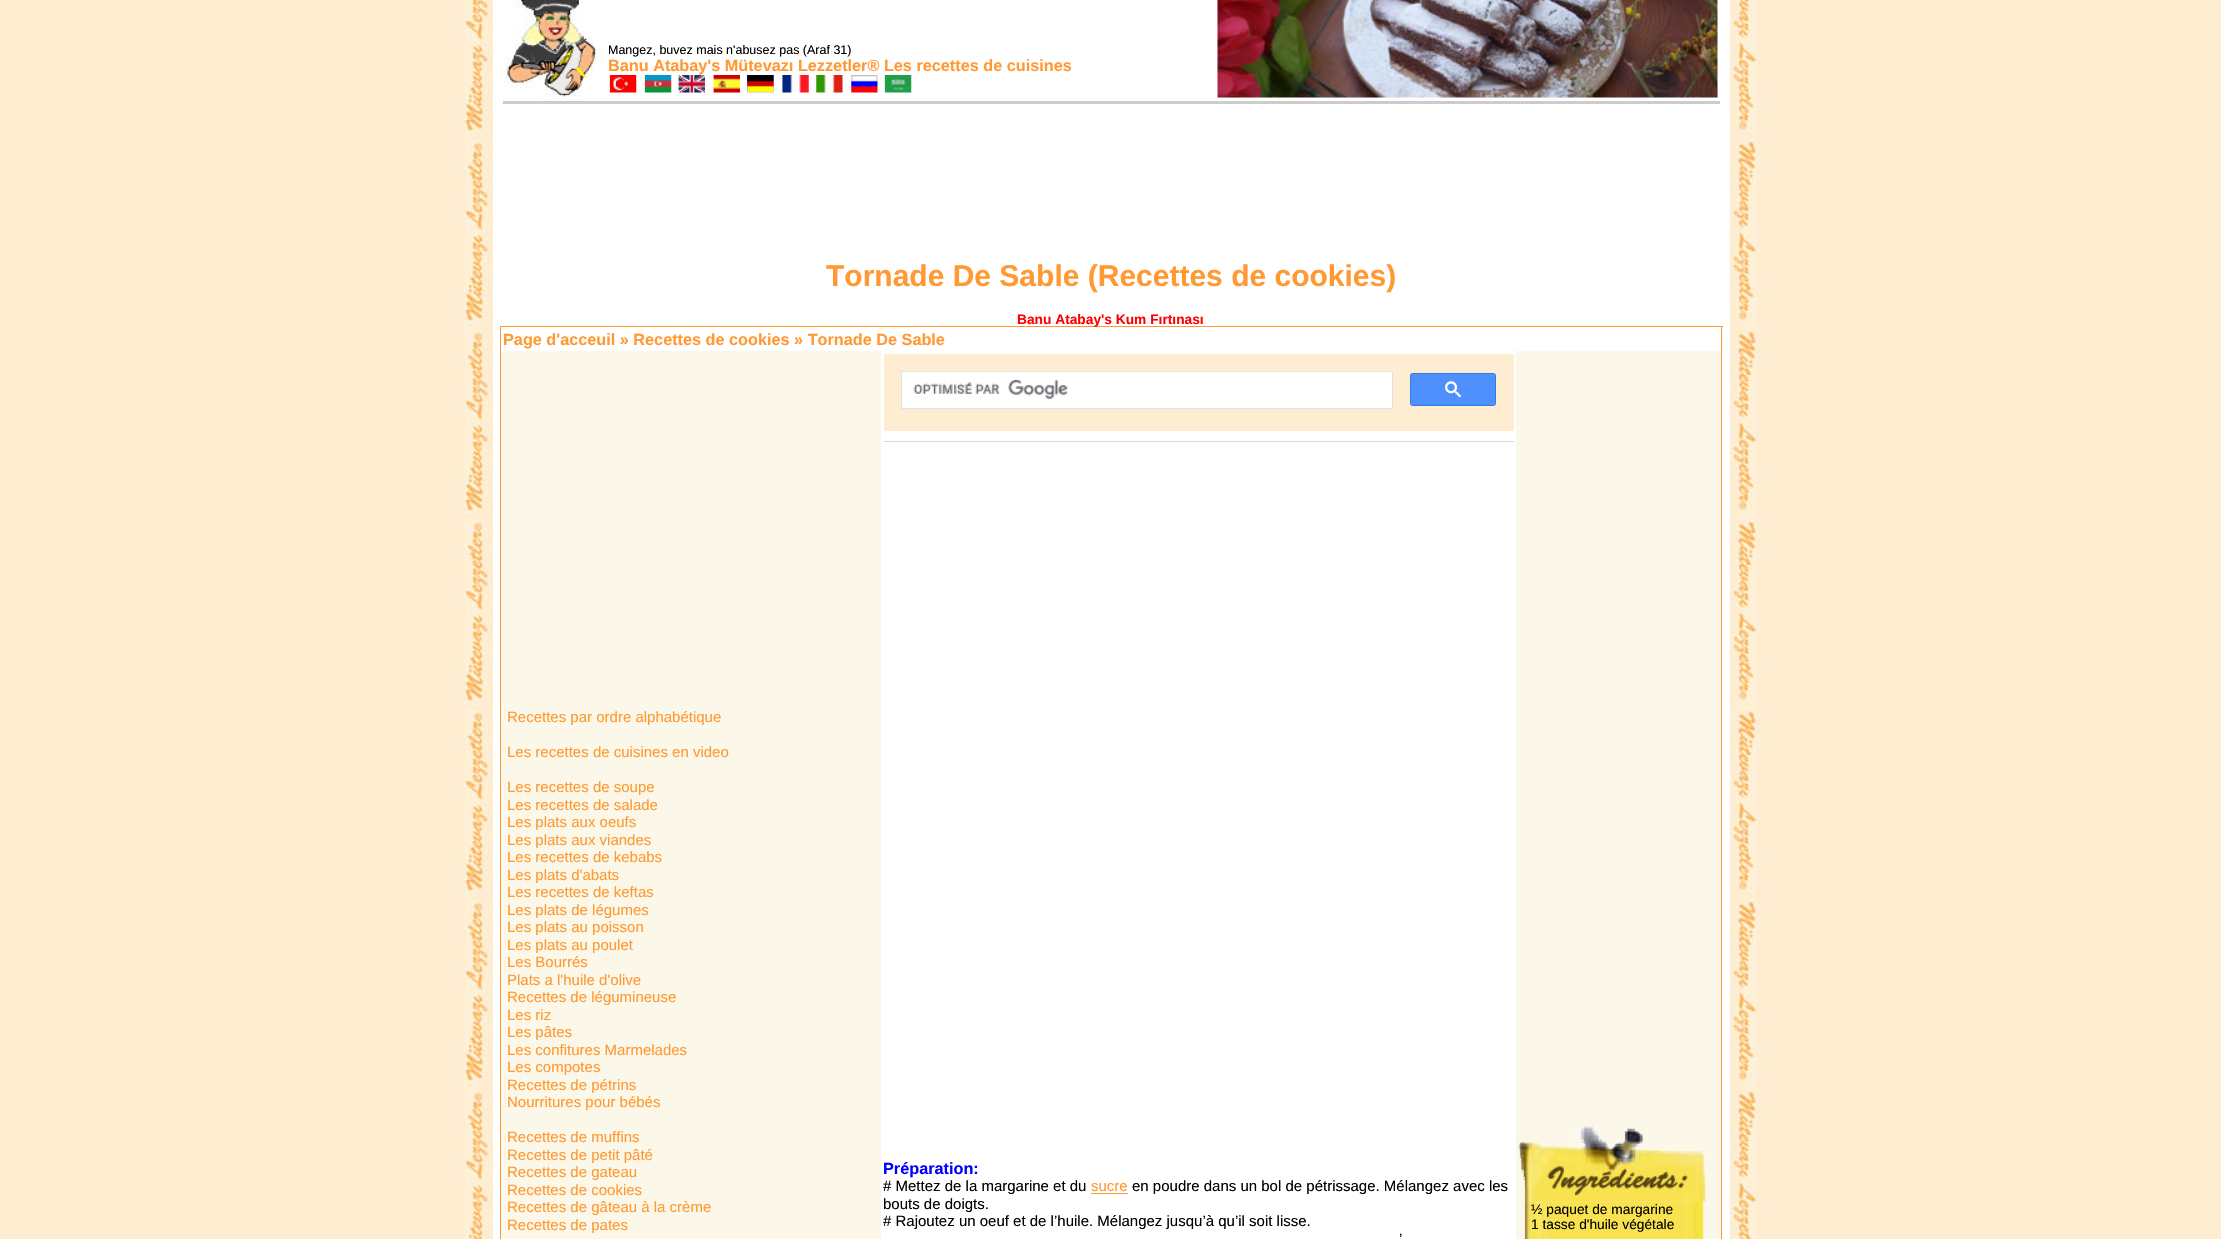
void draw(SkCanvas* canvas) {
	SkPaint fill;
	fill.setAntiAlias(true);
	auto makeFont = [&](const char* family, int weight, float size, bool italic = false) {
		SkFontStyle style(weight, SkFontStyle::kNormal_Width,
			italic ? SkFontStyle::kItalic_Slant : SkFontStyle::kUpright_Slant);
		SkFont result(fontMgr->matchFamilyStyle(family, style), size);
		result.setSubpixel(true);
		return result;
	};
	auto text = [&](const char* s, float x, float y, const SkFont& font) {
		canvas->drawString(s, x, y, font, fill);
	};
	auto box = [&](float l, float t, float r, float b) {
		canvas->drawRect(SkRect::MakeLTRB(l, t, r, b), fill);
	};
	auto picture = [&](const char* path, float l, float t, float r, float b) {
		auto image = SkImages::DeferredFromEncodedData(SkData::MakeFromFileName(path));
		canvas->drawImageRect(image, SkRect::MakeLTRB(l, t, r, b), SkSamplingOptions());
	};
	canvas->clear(0xFFFEEDD1);
	picture("image0.png", 461, 0, 1762, 1239);
	fill.setColor(0xFFFFFFFF);
	box(493, 0, 1730, 1239);
	picture("image1.png", 504, 0, 603, 98);
	picture("image2.png", 609, 75, 637, 93);
	picture("image3.png", 644, 75, 672, 93);
	picture("image4.png", 678, 75, 705, 93);
	picture("image5.png", 713, 75, 740, 93);
	picture("image6.png", 747, 75, 774, 93);
	picture("image7.png", 782, 75, 809, 93);
	picture("image8.png", 816, 75, 843, 93);
	picture("image9.png", 851, 75, 878, 93);
	picture("image10.png", 884, 75, 912, 93);
	picture("image11.png", 1217, 0, 1718, 98);
	fill.setColor(0xFFCCCCCC);
	box(503, 101, 1720, 104);
	fill.setColor(0xFFFF9933);
	box(500, 326, 1723, 327);
	box(1721, 326, 1722, 1239);
	box(500, 326, 501, 1239);
	fill.setColor(0xFFFCF8E9);
	box(501, 351, 881, 1239);
	fill.setColor(0xFFFEEDD1);
	box(884, 354, 1514, 431);
	fill.setColor(0xFFFFFFFF);
	canvas->drawRect(SkRect::MakeLTRB(901.5f, 371.5f, 1392.5f, 408.5f), fill);
	fill.setStyle(SkPaint::kStroke_Style);
	fill.setStrokeWidth(1);
	fill.setColor(0xFFDFE1E5);
	canvas->drawRect(SkRect::MakeLTRB(901.5f, 371.5f, 1392.5f, 408.5f), fill);
	picture("image12.png", 913, 380, 1068, 399);
	fill.setStyle(SkPaint::kFill_Style);
	fill.setColor(0xFF4D90FE);
	canvas->drawRoundRect(SkRect::MakeLTRB(1410.5f, 373.5f, 1495.5f, 405.5f), 2, 2, fill);
	fill.setStyle(SkPaint::kStroke_Style);
	fill.setColor(0xFF3079ED);
	canvas->drawRoundRect(SkRect::MakeLTRB(1410.5f, 373.5f, 1495.5f, 405.5f), 2, 2, fill);
	picture("image13.png", 1445, 381, 1461, 398);
	fill.setStyle(SkPaint::kFill_Style);
	fill.setColor(0xFFD1D7DC);
	box(884, 441, 1514, 442);
	fill.setColor(0xFFFF9933);
	box(1091, 1193, 1128, 1194);
	fill.setColor(0xFFFCF8E9);
	box(1516, 351, 1721, 1239);
	picture("image14.png", 1518, 1126, 1707, 1202);
	picture("image15.png", 1524, 1201, 1704, 1239);
	auto font1 = makeFont("Liberation Sans", 400, 12.5f);
	fill.setColor(0xFF000000);
	text("Mangez, buvez mais n'abusez pas (Araf 31)", 608, 54, font1);
	auto font2 = makeFont("Liberation Sans", 700, 16.25f);
	fill.setColor(0xFFFF9933);
	text("Banu Atabay's Mütevazı Lezzetler® Les recettes de cuisines", 608, 71, font2);
	auto font3 = makeFont("Liberation Sans", 700, 30);
	text("Tornade De Sable (Recettes de cookies)", 826, 286, font3);
	auto font4 = makeFont("Liberation Sans", 700, 13.75f);
	fill.setColor(0xFFFF0000);
	text("Banu Atabay's Kum Fırtınası", 1017, 324, font4);
	fill.setColor(0xFFFF9933);
	text("Page d'acceuil » Recettes de cookies » Tornade De Sable", 503, 345, font2);
	auto font5 = makeFont("Liberation Sans", 400, 15);
	text("Recettes par ordre alphabétique", 507, 722, font5);
	text("Les recettes de cuisines en video", 507, 757, font5);
	text("Les recettes de soupe", 507, 792, font5);
	text("Les recettes de salade", 507, 810, font5);
	text("Les plats aux oeufs", 507, 827, font5);
	text("Les plats aux viandes", 507, 845, font5);
	text("Les recettes de kebabs", 507, 862, font5);
	text("Les plats d'abats", 507, 880, font5);
	text("Les recettes de keftas", 507, 897, font5);
	text("Les plats de légumes", 507, 915, font5);
	text("Les plats au poisson", 507, 932, font5);
	text("Les plats au poulet", 507, 950, font5);
	text("Les Bourrés", 507, 967, font5);
	text("Plats a l'huile d'olive", 507, 985, font5);
	text("Recettes de légumineuse", 507, 1002, font5);
	text("Les riz", 507, 1020, font5);
	text("Les pâtes", 507, 1037, font5);
	text("Les confitures Marmelades", 507, 1055, font5);
	text("Les compotes", 507, 1072, font5);
	text("Recettes de pétrins", 507, 1090, font5);
	text("Nourritures pour bébés", 507, 1107, font5);
	text("Recettes de muffins", 507, 1142, font5);
	text("Recettes de petit pâté", 507, 1160, font5);
	text("Recettes de gateau", 507, 1177, font5);
	text("Recettes de cookies", 507, 1195, font5);
	text("Recettes de gâteau à la crème", 507, 1212, font5);
	text("Recettes de pates", 507, 1230, font5);
	fill.setColor(0xFF0000FF);
	text("Préparation:", 883, 1174, font2);
	fill.setColor(0xFF000000);
	text("# Mettez de la margarine et du", 883, 1191, font5);
	fill.setColor(0xFFFF9933);
	text("sucre", 1091, 1191, font5);
	fill.setColor(0xFF000000);
	text("en poudre dans un bol de pétrissage. Mélangez avec les", 1132, 1191, font5);
	text("bouts de doigts.", 883, 1209, font5);
	text("# Rajoutez un oeuf et de l’huile. Mélangez jusqu’à qu’il soit lisse.", 883, 1226, font5);
	text("’", 1399, 1244, font5);
	auto font6 = makeFont("Liberation Sans", 400, 13.75f);
	text("½ paquet de margarine", 1531, 1214, font6);
	text("1 tasse d'huile végétale", 1531, 1229, font6);
}
